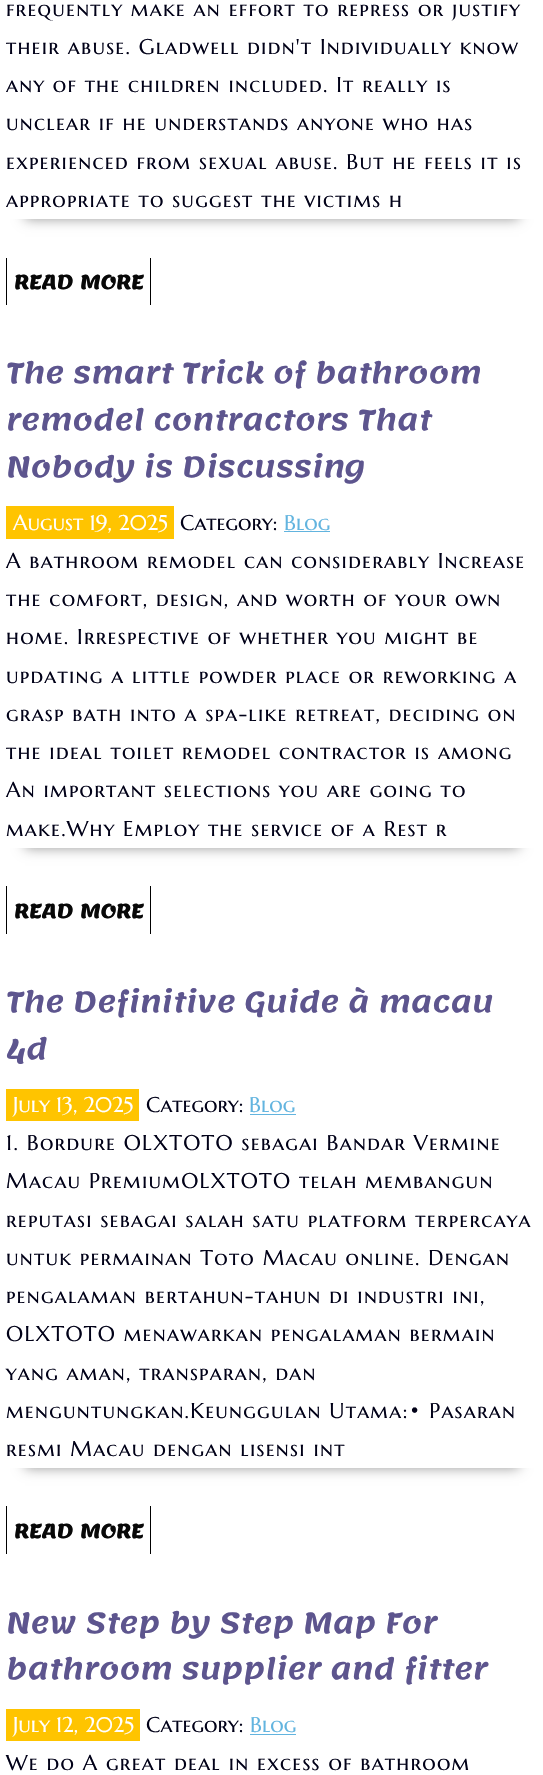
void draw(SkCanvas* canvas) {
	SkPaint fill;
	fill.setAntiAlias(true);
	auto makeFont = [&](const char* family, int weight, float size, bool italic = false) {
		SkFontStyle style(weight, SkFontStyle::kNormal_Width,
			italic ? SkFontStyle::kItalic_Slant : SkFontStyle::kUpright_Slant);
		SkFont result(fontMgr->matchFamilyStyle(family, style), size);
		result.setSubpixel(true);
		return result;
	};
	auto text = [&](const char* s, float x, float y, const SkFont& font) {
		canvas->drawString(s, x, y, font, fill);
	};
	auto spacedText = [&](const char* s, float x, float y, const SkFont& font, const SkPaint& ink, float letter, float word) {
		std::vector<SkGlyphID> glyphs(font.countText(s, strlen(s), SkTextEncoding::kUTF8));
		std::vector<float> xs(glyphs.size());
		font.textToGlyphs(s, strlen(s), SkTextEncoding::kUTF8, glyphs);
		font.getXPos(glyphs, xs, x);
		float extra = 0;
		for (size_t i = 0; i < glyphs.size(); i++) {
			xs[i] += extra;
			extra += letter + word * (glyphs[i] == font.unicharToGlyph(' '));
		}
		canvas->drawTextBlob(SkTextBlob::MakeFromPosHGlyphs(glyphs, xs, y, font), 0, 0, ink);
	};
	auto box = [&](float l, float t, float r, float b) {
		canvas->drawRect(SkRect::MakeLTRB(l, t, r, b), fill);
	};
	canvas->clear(0xFFFFFFFF);
	canvas->save();
	canvas->clipPath(SkPathBuilder(SkPathFillType::kEvenOdd).moveTo(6, 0).lineTo(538, 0).lineTo(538, 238).lineTo(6, 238).close().moveTo(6, -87).lineTo(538, -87).lineTo(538, 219).lineTo(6, 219).close().detach(), true);
	fill.setColor(0xFF999999);
	fill.setMaskFilter(SkMaskFilter::MakeBlur(kNormal_SkBlurStyle, 6));
	canvas->drawRect(SkRect::MakeLTRB(25, -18, 519, 219), fill);
	fill.setMaskFilter(nullptr);
	canvas->restore();
	fill.setColor(0xFF000000);
	box(6, 258, 7, 305);
	box(150, 258, 151, 305);
	fill.setColor(0xFFFFC400);
	box(6, 506, 174, 539);
	fill.setColor(0xFF62B4DF);
	box(284, 531, 330, 532);
	canvas->save();
	canvas->clipPath(SkPathBuilder(SkPathFillType::kEvenOdd).moveTo(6, 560).lineTo(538, 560).lineTo(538, 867).lineTo(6, 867).close().moveTo(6, 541).lineTo(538, 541).lineTo(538, 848).lineTo(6, 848).close().detach(), true);
	fill.setColor(0xFF999999);
	fill.setMaskFilter(SkMaskFilter::MakeBlur(kNormal_SkBlurStyle, 6));
	canvas->drawRect(SkRect::MakeLTRB(25, 579, 519, 848), fill);
	fill.setMaskFilter(nullptr);
	canvas->restore();
	fill.setColor(0xFF000000);
	box(6, 886, 7, 934);
	box(150, 886, 151, 934);
	fill.setColor(0xFFFFC400);
	box(6, 1089, 139, 1121);
	fill.setColor(0xFF62B4DF);
	box(250, 1114, 296, 1115);
	canvas->save();
	canvas->clipPath(SkPathBuilder(SkPathFillType::kEvenOdd).moveTo(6, 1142).lineTo(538, 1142).lineTo(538, 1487).lineTo(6, 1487).close().moveTo(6, 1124).lineTo(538, 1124).lineTo(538, 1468).lineTo(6, 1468).close().detach(), true);
	fill.setColor(0xFF999999);
	fill.setMaskFilter(SkMaskFilter::MakeBlur(kNormal_SkBlurStyle, 6));
	canvas->drawRect(SkRect::MakeLTRB(25, 1161, 519, 1468), fill);
	fill.setMaskFilter(nullptr);
	canvas->restore();
	fill.setColor(0xFF000000);
	box(6, 1506, 7, 1554);
	box(150, 1506, 151, 1554);
	fill.setColor(0xFFFFC400);
	box(6, 1709, 140, 1741);
	fill.setColor(0xFF62B4DF);
	box(250, 1734, 296, 1735);
	auto font1 = makeFont("Marcellus SC", 400, 21.25f);
	fill.setColor(0xFF010118);
	spacedText("frequently make an effort to repress or justify", 6, 16, font1, fill, 1.25f, 0);
	spacedText("their abuse. Gladwell didn't Individually know", 6, 54, font1, fill, 1.25f, 0);
	spacedText("any of the children included. It really is", 6, 92, font1, fill, 1.25f, 0);
	spacedText("unclear if he understands anyone who has", 6, 130, font1, fill, 1.25f, 0);
	spacedText("experienced from sexual abuse. But he feels it is", 6, 169, font1, fill, 1.25f, 0);
	spacedText("appropriate to suggest the victims h", 6, 207, font1, fill, 1.25f, 0);
	auto font2 = makeFont("Lemonada", 700, 20);
	fill.setColor(0xFF080808);
	text("READ MORE", 14, 289, font2);
	auto font3 = makeFont("Lemonada", 600, 28.75f);
	fill.setColor(0xFF5D558E);
	text("The smart Trick of bathroom", 6, 383, font3);
	text("remodel contractors That", 6, 430, font3);
	text("Nobody is Discussing", 6, 477, font3);
	fill.setColor(0xFFFFFFFF);
	text("August 19, 2025", 13, 530, font1);
	fill.setColor(0xFF010118);
	text("Category:", 180, 530, font1);
	fill.setColor(0xFF62B4DF);
	text("Blog", 284, 530, font1);
	fill.setColor(0xFF010118);
	spacedText("A bathroom remodel can considerably Increase", 6, 568, font1, fill, 1.25f, 0);
	spacedText("the comfort, design, and worth of your own", 6, 606, font1, fill, 1.25f, 0);
	spacedText("home. Irrespective of whether you might be", 6, 644, font1, fill, 1.25f, 0);
	spacedText("updating a little powder place or reworking a", 6, 683, font1, fill, 1.25f, 0);
	spacedText("grasp bath into a spa-like retreat, deciding on", 6, 721, font1, fill, 1.25f, 0);
	spacedText("the ideal toilet remodel contractor is among", 6, 759, font1, fill, 1.25f, 0);
	spacedText("An important selections you are going to", 6, 797, font1, fill, 1.25f, 0);
	spacedText("make.Why Employ the service of a Rest r", 6, 836, font1, fill, 1.25f, 0);
	fill.setColor(0xFF080808);
	text("READ MORE", 14, 918, font2);
	fill.setColor(0xFF5D558E);
	text("The Definitive Guide à macau", 6, 1012, font3);
	text("4d", 6, 1059, font3);
	fill.setColor(0xFFFFFFFF);
	text("July 13, 2025", 13, 1112, font1);
	fill.setColor(0xFF010118);
	text("Category:", 146, 1112, font1);
	fill.setColor(0xFF62B4DF);
	text("Blog", 249, 1112, font1);
	fill.setColor(0xFF010118);
	spacedText("1. Bordure OLXTOTO sebagai Bandar Vermine", 6, 1150, font1, fill, 1.25f, 0);
	spacedText("Macau PremiumOLXTOTO telah membangun", 6, 1188, font1, fill, 1.25f, 0);
	spacedText("reputasi sebagai salah satu platform terpercaya", 6, 1227, font1, fill, 1.25f, 0);
	spacedText("untuk permainan Toto Macau online. Dengan", 6, 1265, font1, fill, 1.25f, 0);
	spacedText("pengalaman bertahun-tahun di industri ini,", 6, 1303, font1, fill, 1.25f, 0);
	spacedText("OLXTOTO menawarkan pengalaman bermain", 6, 1341, font1, fill, 1.25f, 0);
	spacedText("yang aman, transparan, dan", 6, 1380, font1, fill, 1.25f, 0);
	spacedText("menguntungkan.Keunggulan Utama:• Pasaran", 6, 1418, font1, fill, 1.25f, 0);
	spacedText("resmi Macau dengan lisensi int", 6, 1456, font1, fill, 1.25f, 0);
	fill.setColor(0xFF080808);
	text("READ MORE", 14, 1538, font2);
	fill.setColor(0xFF5D558E);
	text("New Step by Step Map For", 6, 1633, font3);
	text("bathroom supplier and fitter", 6, 1679, font3);
	fill.setColor(0xFFFFFFFF);
	text("July 12, 2025", 13, 1732, font1);
	fill.setColor(0xFF010118);
	text("Category:", 146, 1732, font1);
	fill.setColor(0xFF62B4DF);
	text("Blog", 250, 1732, font1);
	fill.setColor(0xFF010118);
	spacedText("We do A great deal in excess of bathroom", 6, 1770, font1, fill, 1.25f, 0);
}
